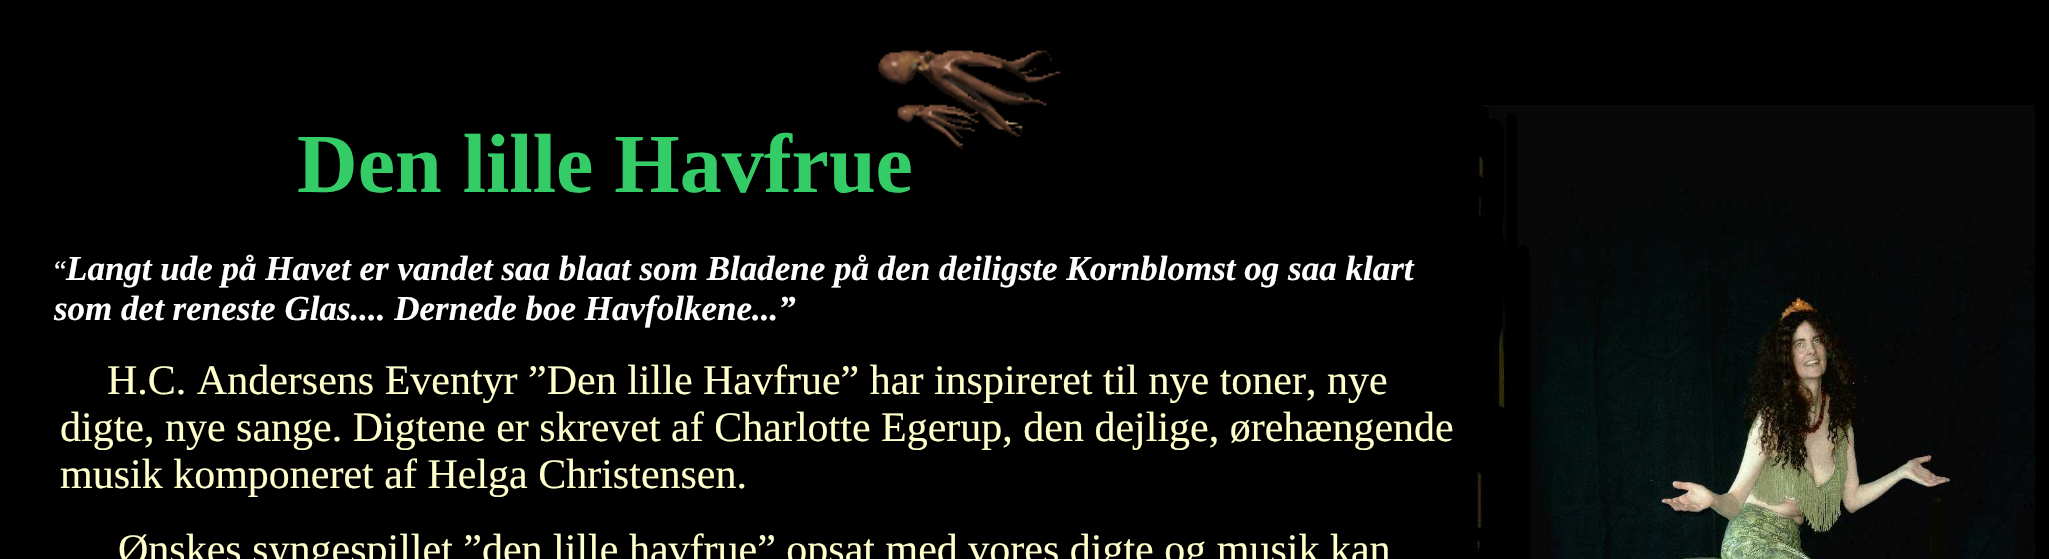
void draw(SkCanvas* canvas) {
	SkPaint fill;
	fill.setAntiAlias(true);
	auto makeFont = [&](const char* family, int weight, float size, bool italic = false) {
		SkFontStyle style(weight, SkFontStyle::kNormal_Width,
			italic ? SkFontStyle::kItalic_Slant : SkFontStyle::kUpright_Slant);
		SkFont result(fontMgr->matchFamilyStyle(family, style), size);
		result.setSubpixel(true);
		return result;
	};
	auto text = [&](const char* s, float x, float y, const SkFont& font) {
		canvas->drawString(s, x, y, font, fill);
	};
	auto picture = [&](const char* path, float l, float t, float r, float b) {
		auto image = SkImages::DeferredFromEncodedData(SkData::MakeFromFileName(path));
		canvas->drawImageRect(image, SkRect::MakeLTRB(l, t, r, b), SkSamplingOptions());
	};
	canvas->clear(0xFF000000);
	picture("image1.png", 1473, 105, 2036, 559);
	auto font1 = makeFont("Liberation Serif", 700, 84);
	fill.setColor(0xFF33CC66);
	text("Den lille Havfrue", 297, 192, font1);
	picture("image0.png", 878, 50, 1061, 150);
	auto font2 = makeFont("Liberation Serif", 400, 28);
	fill.setColor(0xFFFFFFFF);
	text("“", 54, 280, font2);
	auto font3 = makeFont("Liberation Serif", 700, 35, true);
	text("Langt ude på Havet er vandet saa blaat som Bladene på den deiligste Kornblomst og saa klart", 66, 280, font3);
	text("som det reneste Glas.... Dernede boe Havfolkene...”", 54, 320, font3);
	auto font4 = makeFont("Liberation Serif", 400, 42);
	fill.setColor(0xFFFFFFCC);
	text("H.C. Andersens Eventyr ”Den lille Havfrue” har inspireret til nye toner, nye", 107, 394, font4);
	text("digte, nye sange. Digtene er skrevet af Charlotte Egerup, den dejlige, ørehængende", 60, 441, font4);
	text("musik komponeret af Helga Christensen.", 60, 488, font4);
	text("Ønskes syngespillet ”den lille havfrue” opsat med vores digte og musik kan", 118, 563, font4);
}
